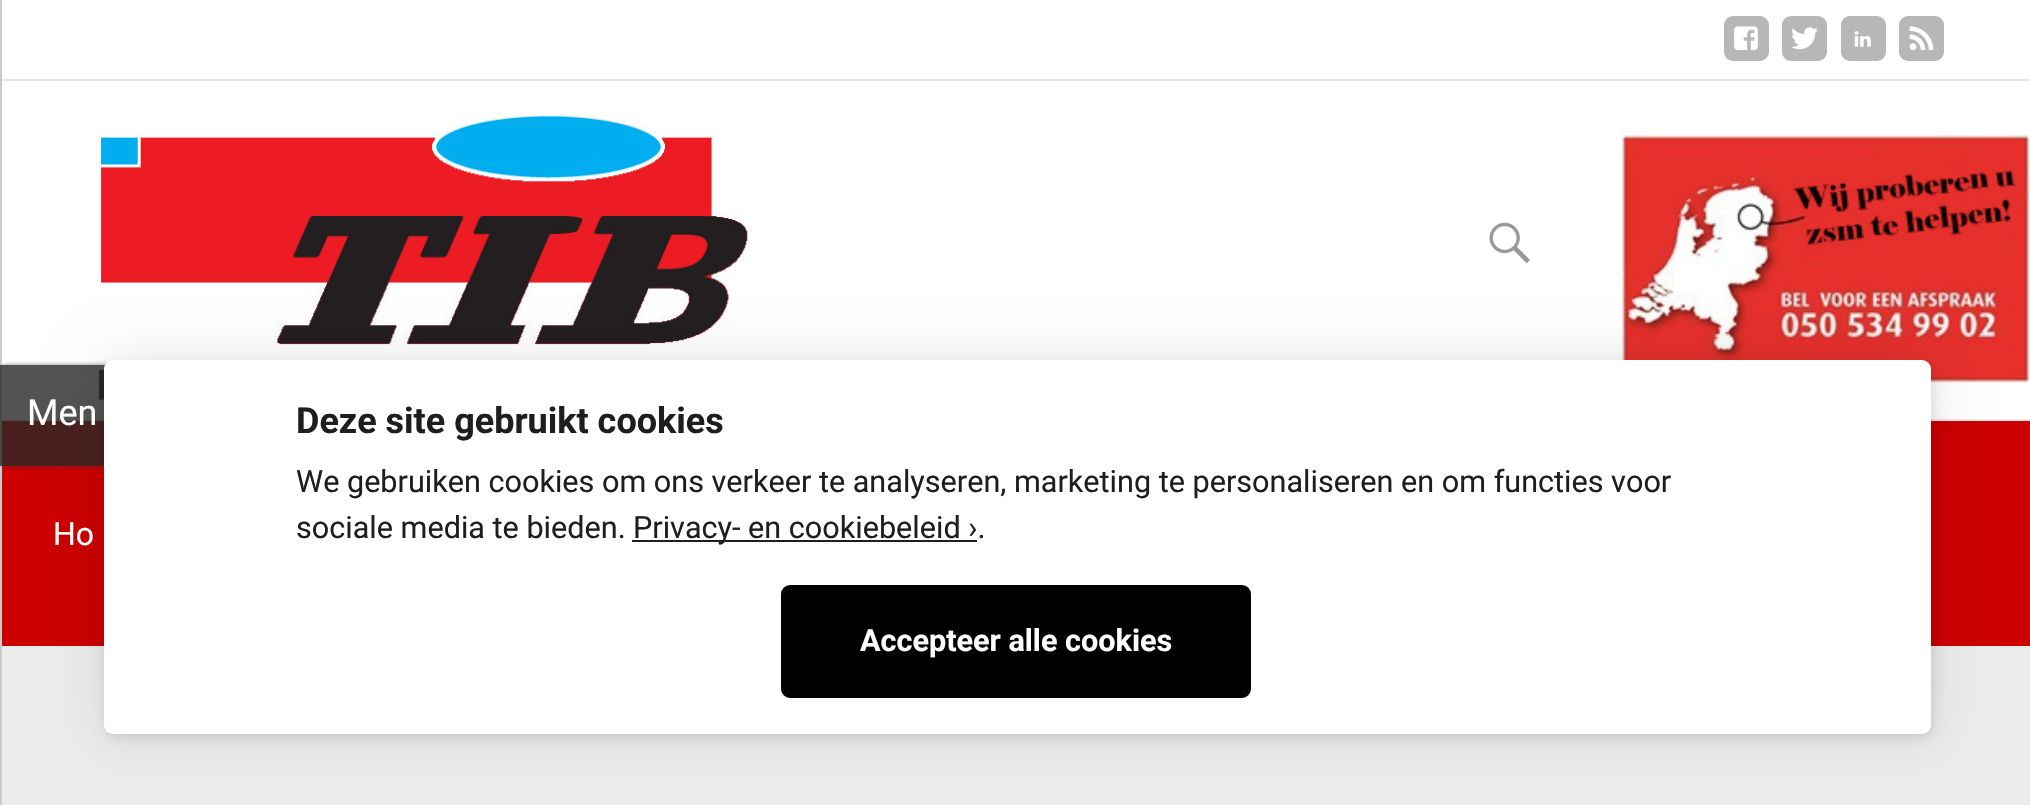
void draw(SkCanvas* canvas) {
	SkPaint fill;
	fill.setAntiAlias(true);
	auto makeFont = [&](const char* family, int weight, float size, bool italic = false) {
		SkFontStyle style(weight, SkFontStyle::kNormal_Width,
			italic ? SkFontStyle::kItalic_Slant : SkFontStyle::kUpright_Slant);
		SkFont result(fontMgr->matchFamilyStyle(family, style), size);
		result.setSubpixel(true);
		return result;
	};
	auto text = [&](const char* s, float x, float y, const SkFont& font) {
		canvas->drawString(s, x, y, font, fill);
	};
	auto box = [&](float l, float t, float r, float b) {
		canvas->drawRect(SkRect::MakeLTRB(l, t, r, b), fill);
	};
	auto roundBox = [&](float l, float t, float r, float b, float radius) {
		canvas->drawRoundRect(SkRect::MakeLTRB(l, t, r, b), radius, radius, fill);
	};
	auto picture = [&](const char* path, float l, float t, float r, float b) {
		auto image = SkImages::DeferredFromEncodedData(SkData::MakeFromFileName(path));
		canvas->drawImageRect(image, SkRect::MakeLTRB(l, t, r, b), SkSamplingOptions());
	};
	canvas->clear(0xFFFFFFFF);
	fill.setColor(0xFFCCCCCC);
	box(0, 0, 2, 805);
	fill.setColor(0xFFE7E7E7);
	box(2, 79, 2030, 81);
	fill.setColor(0xFFB7B7B7);
	roundBox(1724, 16, 1769, 61, 9);
	picture("image0.png", 1734, 26, 1758, 51);
	roundBox(1782, 16, 1827, 61, 9);
	picture("image1.png", 1791, 27, 1818, 50);
	roundBox(1841, 16, 1886, 61, 9);
	picture("image2.png", 1854, 31, 1871, 47);
	roundBox(1899, 16, 1944, 61, 9);
	picture("image3.png", 1909, 26, 1934, 51);
	fill.setColor(0xFFE7E7E7);
	box(2, 419, 2030, 421);
	picture("image4.png", 95, 114, 753, 402);
	picture("image5.png", 1622, 135, 2030, 383);
	picture("image6.png", 1489, 222, 1530, 264);
	fill.setColor(0xFFCC0000);
	box(2, 421, 2030, 646);
	canvas->save();
	canvas->clipPath(SkPathBuilder(SkPathFillType::kEvenOdd).moveTo(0, 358).lineTo(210, 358).lineTo(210, 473).lineTo(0, 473).close().moveTo(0, 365).lineTo(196, 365).cubicTo(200, 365, 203, 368, 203, 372).lineTo(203, 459).cubicTo(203, 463, 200, 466, 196, 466).lineTo(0, 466).close().detach(), true);
	fill.setColor(0xA3323232);
	fill.setMaskFilter(SkMaskFilter::MakeBlur(kNormal_SkBlurStyle, 2));
	canvas->drawRoundRect(SkRect::MakeLTRB(0, 365, 203, 466), 7, 7, fill);
	fill.setMaskFilter(nullptr);
	canvas->restore();
	fill.setColor(0xCC282828);
	box(0, 365, 105, 466);
	fill.setColor(0xFFECECEC);
	box(2, 646, 2030, 805);
	fill.setColor(0x1A000000);
	fill.setMaskFilter(SkMaskFilter::MakeBlur(kNormal_SkBlurStyle, 5.5f));
	canvas->drawRoundRect(SkRect::MakeLTRB(106, 365, 1933, 738), 9, 9, fill);
	fill.setMaskFilter(nullptr);
	fill.setMaskFilter(SkMaskFilter::MakeBlur(kNormal_SkBlurStyle, 28));
	canvas->drawRoundRect(SkRect::MakeLTRB(104, 360, 1931, 734), 9, 9, fill);
	fill.setMaskFilter(nullptr);
	fill.setColor(0xFFFFFFFF);
	roundBox(104, 360, 1931, 734, 9);
	fill.setColor(0xFF1E1E1E);
	box(632, 540, 977, 542);
	fill.setColor(0xFF000000);
	canvas->drawRoundRect(SkRect::MakeLTRB(782, 586, 1250, 697), 8, 8, fill);
	fill.setStyle(SkPaint::kStroke_Style);
	fill.setStrokeWidth(2);
	canvas->drawRoundRect(SkRect::MakeLTRB(782, 586, 1250, 697), 8, 8, fill);
	auto font1 = makeFont("Roboto", 400, 36);
	fill.setStyle(SkPaint::kFill_Style);
	fill.setColor(0xFFFFFFFF);
	text("Men", 27, 425, font1);
	auto font2 = makeFont("Roboto", 400, 32);
	text("Ho", 53, 545, font2);
	auto font3 = makeFont("Roboto", 700, 36);
	fill.setColor(0xFF1E1E1E);
	text("Deze site gebruikt cookies", 296, 433, font3);
	auto font4 = makeFont("Roboto", 400, 30.6f);
	text("We gebruiken cookies om ons verkeer te analyseren, marketing te personaliseren en om functies voor", 296, 492, font4);
	text("sociale media te bieden.", 296, 538, font4);
	text("Privacy- en cookiebeleid ›.", 633, 538, font4);
	auto font5 = makeFont("Roboto", 700, 30.6f);
	fill.setColor(0xFFFFFFFF);
	text("Accepteer alle cookies", 860, 651, font5);
}
